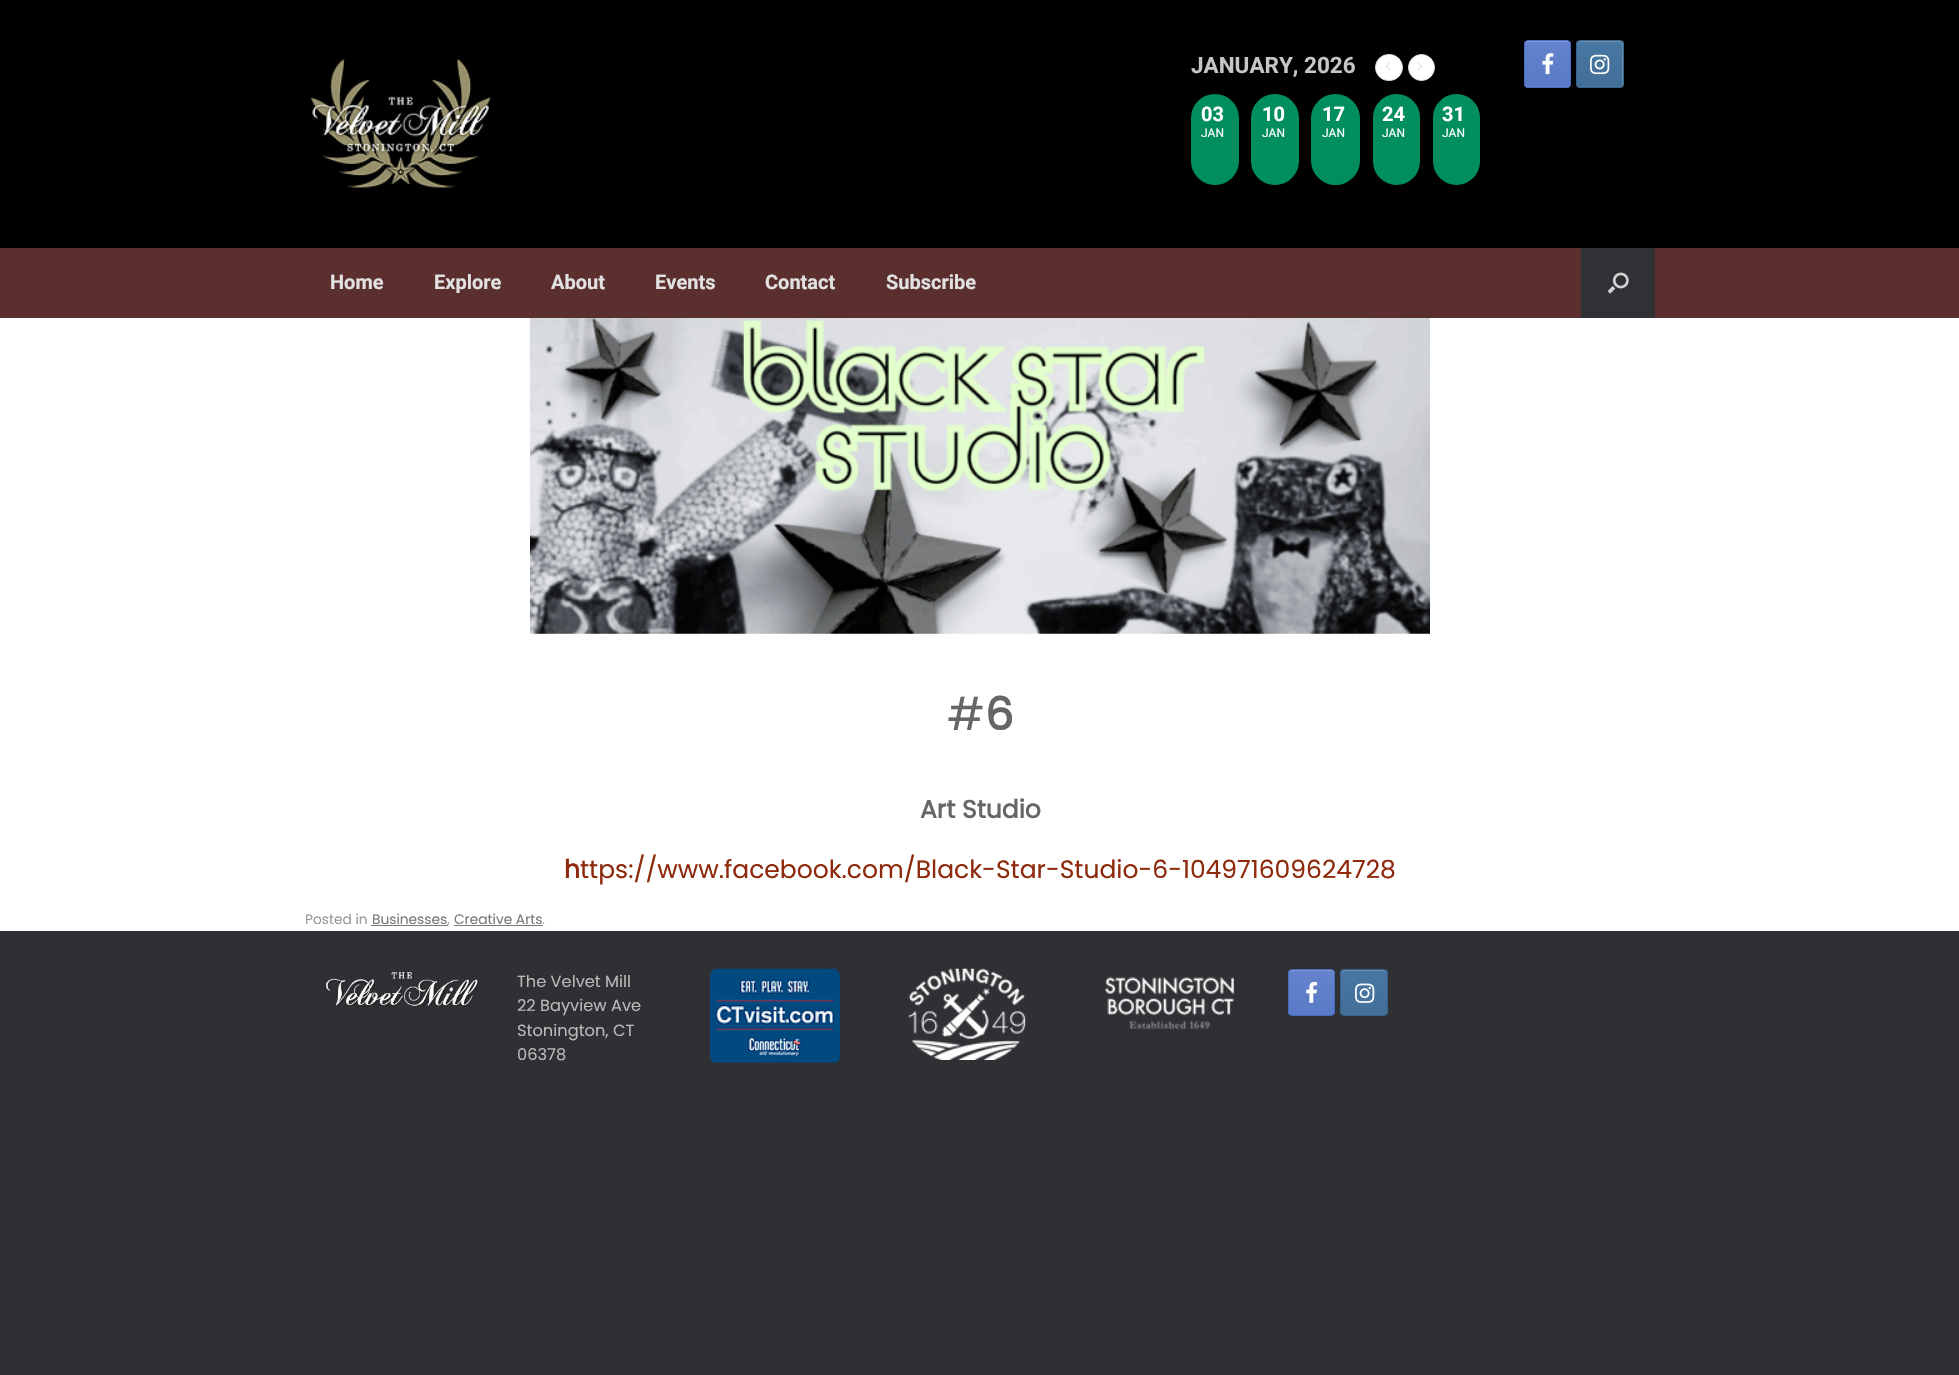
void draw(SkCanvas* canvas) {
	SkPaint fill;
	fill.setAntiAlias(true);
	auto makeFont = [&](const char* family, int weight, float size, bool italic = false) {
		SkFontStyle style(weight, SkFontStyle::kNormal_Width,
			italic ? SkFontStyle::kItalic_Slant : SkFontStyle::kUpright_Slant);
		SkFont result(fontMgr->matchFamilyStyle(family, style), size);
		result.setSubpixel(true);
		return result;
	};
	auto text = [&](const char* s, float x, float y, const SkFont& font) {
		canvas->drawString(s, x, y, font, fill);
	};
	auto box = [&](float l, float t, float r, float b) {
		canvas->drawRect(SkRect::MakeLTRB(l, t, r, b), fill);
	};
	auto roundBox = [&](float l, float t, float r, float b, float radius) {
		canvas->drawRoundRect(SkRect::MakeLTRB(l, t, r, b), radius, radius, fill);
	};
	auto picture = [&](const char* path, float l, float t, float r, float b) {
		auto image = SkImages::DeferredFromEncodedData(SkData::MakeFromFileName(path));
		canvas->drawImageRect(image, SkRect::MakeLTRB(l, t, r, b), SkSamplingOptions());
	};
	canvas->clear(0xFF2F3033);
	fill.setColor(0xFF000000);
	box(0, 0, 1959, 248);
	picture("image0.png", 310, 58, 491, 188);
	fill.setColor(0xFFFFFFFF);
	canvas->drawRoundRect(SkRect::MakeLTRB(1375.5f, 54.5f, 1402.5f, 80.5f), 13, 13, fill);
	fill.setStyle(SkPaint::kStroke_Style);
	fill.setStrokeWidth(1);
	fill.setColor(0xFFE2E2E2);
	canvas->drawRoundRect(SkRect::MakeLTRB(1375.5f, 54.5f, 1402.5f, 80.5f), 13, 13, fill);
	picture("image1.png", 1385, 62, 1390, 71);
	fill.setStyle(SkPaint::kFill_Style);
	fill.setColor(0xFFFFFFFF);
	canvas->drawCircle(1421.5f, 67.5f, 13, fill);
	fill.setStyle(SkPaint::kStroke_Style);
	fill.setColor(0xFFE2E2E2);
	canvas->drawCircle(1421.5f, 67.5f, 13, fill);
	picture("image2.png", 1417, 62, 1423, 71);
	fill.setStyle(SkPaint::kFill_Style);
	fill.setColor(0xFF008E61);
	roundBox(1191, 94, 1239, 185, 24);
	roundBox(1251, 94, 1299, 185, 24);
	roundBox(1311, 94, 1360, 185, 24.5f);
	roundBox(1373, 94, 1420, 185, 23.5f);
	roundBox(1433, 94, 1480, 185, 23.5f);
	canvas->save();
	canvas->clipPath(SkPathBuilder().moveTo(1528, 40).lineTo(1567, 40).cubicTo(1569, 40, 1571, 42, 1571, 44).lineTo(1571, 84).cubicTo(1571, 86, 1569, 88, 1567, 88).lineTo(1528, 88).cubicTo(1526, 88, 1524, 86, 1524, 84).lineTo(1524, 44).cubicTo(1524, 42, 1526, 40, 1528, 40).close().detach(), true);
	{
		const SkColor colors[] = {0xFF597AC7, 0xFF6483CB};
		const float stops[] = {0, 1};
		const SkPoint ends[] = {{1525, 86}, {1525, 41}};
		fill.setShader(SkGradientShader::MakeLinear(ends, colors, stops, 2, SkTileMode::kClamp));
		fill.setAlpha(255);
	}
	box(1524, 41, 1571, 86);
	{
		const SkColor colors[] = {0xFF597AC7, 0xFF6483CB};
		const float stops[] = {0, 1};
		const SkPoint ends[] = {{1525, 131}, {1525, 86}};
		fill.setShader(SkGradientShader::MakeLinear(ends, colors, stops, 2, SkTileMode::kClamp));
		fill.setAlpha(255);
	}
	box(1524, 86, 1571, 88);
	canvas->restore();
	fill.setShader(nullptr);
	fill.setColor(0xFF839CD5);
	canvas->drawPath(SkPathBuilder().moveTo(1528, 42).lineTo(1568, 42).cubicTo(1569, 42, 1570, 44, 1570, 45).cubicTo(1570, 39, 1566, 41, 1561, 41).lineTo(1534, 41).cubicTo(1529, 41, 1525, 39, 1525, 45).cubicTo(1525, 44, 1526, 42, 1528, 42).close().detach(), fill);
	fill.setStyle(SkPaint::kStroke_Style);
	fill.setColor(0xFF466BC1);
	canvas->drawRoundRect(SkRect::MakeLTRB(1524.5f, 40.5f, 1570.5f, 87.5f), 3.5f, 3.5f, fill);
	picture("image3.png", 1542, 53, 1554, 75);
	canvas->save();
	canvas->clipPath(SkPathBuilder().moveTo(1580, 40).lineTo(1620, 40).cubicTo(1622, 40, 1624, 42, 1624, 44).lineTo(1624, 84).cubicTo(1624, 86, 1622, 88, 1620, 88).lineTo(1580, 88).cubicTo(1578, 88, 1576, 86, 1576, 84).lineTo(1576, 44).cubicTo(1576, 42, 1578, 40, 1580, 40).close().detach(), true);
	fill.setStyle(SkPaint::kFill_Style);
	{
		const SkColor colors[] = {0xFF426F98, 0xFF4777A3};
		const float stops[] = {0, 1};
		const SkPoint ends[] = {{1578, 86}, {1578, 41}};
		fill.setShader(SkGradientShader::MakeLinear(ends, colors, stops, 2, SkTileMode::kClamp));
		fill.setAlpha(255);
	}
	box(1576, 41, 1624, 86);
	{
		const SkColor colors[] = {0xFF426F98, 0xFF4777A3};
		const float stops[] = {0, 1};
		const SkPoint ends[] = {{1578, 131}, {1578, 86}};
		fill.setShader(SkGradientShader::MakeLinear(ends, colors, stops, 2, SkTileMode::kClamp));
		fill.setAlpha(255);
	}
	box(1576, 86, 1624, 88);
	canvas->restore();
	fill.setShader(nullptr);
	fill.setColor(0x33FFFFFF);
	canvas->drawPath(SkPathBuilder().moveTo(1580, 42).lineTo(1620, 42).cubicTo(1624, 43, 1622, 56, 1622, 58).lineTo(1622, 86).cubicTo(1623, 85, 1623, 84, 1623, 84).lineTo(1623, 44).cubicTo(1623, 42, 1622, 41, 1620, 41).lineTo(1580, 41).cubicTo(1579, 41, 1578, 42, 1578, 44).lineTo(1578, 45).cubicTo(1578, 44, 1579, 42, 1580, 42).close().detach(), fill);
	fill.setStyle(SkPaint::kStroke_Style);
	fill.setColor(0xFF3A6286);
	canvas->drawRoundRect(SkRect::MakeLTRB(1576.5f, 40.5f, 1623.5f, 87.5f), 3.5f, 3.5f, fill);
	picture("image4.png", 1590, 54, 1610, 75);
	fill.setStyle(SkPaint::kFill_Style);
	fill.setColor(0xFF5B2F2E);
	box(0, 248, 1959, 318);
	fill.setColor(0xFF303134);
	box(1581, 248, 1655, 318);
	picture("image5.png", 1607, 272, 1629, 294);
	fill.setColor(0xFFFFFFFF);
	box(0, 318, 1959, 931);
	picture("image6.png", 530, 318, 1430, 634);
	fill.setColor(0xFF777777);
	box(371, 925, 448, 926);
	box(454, 925, 543, 926);
	picture("image7.png", 325, 972, 479, 1007);
	picture("image8.png", 710, 968, 840, 1063);
	picture("image9.png", 908, 968, 1026, 1060);
	picture("image10.png", 1104, 976, 1235, 1029);
	canvas->save();
	canvas->clipPath(SkPathBuilder().moveTo(1292, 969).lineTo(1331, 969).cubicTo(1333, 969, 1335, 971, 1335, 973).lineTo(1335, 1012).cubicTo(1335, 1014, 1333, 1016, 1331, 1016).lineTo(1292, 1016).cubicTo(1290, 1016, 1288, 1014, 1288, 1012).lineTo(1288, 973).cubicTo(1288, 971, 1290, 969, 1292, 969).close().detach(), true);
	{
		const SkColor colors[] = {0xFF597AC7, 0xFF6483CB};
		const float stops[] = {0, 1};
		const SkPoint ends[] = {{1289, 1015}, {1289, 970}};
		fill.setShader(SkGradientShader::MakeLinear(ends, colors, stops, 2, SkTileMode::kClamp));
		fill.setAlpha(255);
	}
	box(1288, 970, 1335, 1015);
	canvas->restore();
	fill.setShader(nullptr);
	fill.setColor(0xFF839CD5);
	canvas->drawPath(SkPathBuilder().moveTo(1291, 971).lineTo(1331, 971).cubicTo(1333, 971, 1334, 972, 1334, 974).cubicTo(1334, 968, 1330, 970, 1325, 970).lineTo(1298, 970).cubicTo(1293, 970, 1289, 968, 1289, 974).cubicTo(1289, 972, 1290, 971, 1291, 971).close().detach(), fill);
	fill.setStyle(SkPaint::kStroke_Style);
	fill.setColor(0xFF466BC1);
	canvas->drawRoundRect(SkRect::MakeLTRB(1288.5f, 969.5f, 1334.5f, 1015.5f), 3.5f, 3.5f, fill);
	picture("image11.png", 1306, 982, 1318, 1003);
	canvas->save();
	canvas->clipPath(SkPathBuilder().moveTo(1344, 969).lineTo(1384, 969).cubicTo(1386, 969, 1388, 971, 1388, 973).lineTo(1388, 1012).cubicTo(1388, 1014, 1386, 1016, 1384, 1016).lineTo(1344, 1016).cubicTo(1342, 1016, 1340, 1014, 1340, 1012).lineTo(1340, 973).cubicTo(1340, 971, 1342, 969, 1344, 969).close().detach(), true);
	fill.setStyle(SkPaint::kFill_Style);
	{
		const SkColor colors[] = {0xFF426F98, 0xFF4777A3};
		const float stops[] = {0, 1};
		const SkPoint ends[] = {{1341, 1015}, {1341, 970}};
		fill.setShader(SkGradientShader::MakeLinear(ends, colors, stops, 2, SkTileMode::kClamp));
		fill.setAlpha(255);
	}
	box(1340, 970, 1388, 1015);
	canvas->restore();
	fill.setShader(nullptr);
	fill.setColor(0xFF6C92B5);
	canvas->drawPath(SkPathBuilder().moveTo(1344, 971).lineTo(1384, 971).cubicTo(1385, 971, 1386, 972, 1386, 974).cubicTo(1386, 968, 1382, 970, 1377, 970).lineTo(1350, 970).cubicTo(1345, 970, 1341, 968, 1341, 974).cubicTo(1341, 972, 1342, 971, 1344, 971).close().detach(), fill);
	fill.setStyle(SkPaint::kStroke_Style);
	fill.setColor(0xFF3A6286);
	canvas->drawRoundRect(SkRect::MakeLTRB(1340.5f, 969.5f, 1387.5f, 1015.5f), 3.5f, 3.5f, fill);
	picture("image12.png", 1355, 983, 1375, 1003);
	auto font1 = makeFont("Roboto", 700, 22.5f);
	fill.setStyle(SkPaint::kFill_Style);
	fill.setColor(0xFFC6C6C6);
	text("JANUARY, 2026", 1191, 73, font1);
	auto font2 = makeFont("Roboto", 700, 20);
	fill.setColor(0xFFFFFFFF);
	text("03", 1201, 121, font2);
	auto font3 = makeFont("Roboto", 400, 12);
	text("JAN", 1201, 137, font3);
	text("10", 1262, 121, font2);
	text("JAN", 1262, 137, font3);
	text("17", 1322, 121, font2);
	text("JAN", 1322, 137, font3);
	text("24", 1382, 121, font2);
	text("JAN", 1382, 137, font3);
	text("31", 1442, 121, font2);
	text("JAN", 1442, 137, font3);
	fill.setColor(0xFFE2E2E2);
	text("Home", 330, 289, font2);
	text("Explore", 434, 289, font2);
	text("About", 551, 289, font2);
	text("Events", 655, 289, font2);
	text("Contact", 765, 289, font2);
	text("Subscribe", 886, 289, font2);
	auto font4 = makeFont("Poppins", 400, 45);
	fill.setColor(0xFF666666);
	text("#", 947, 730, font4);
	auto font5 = makeFont("Poppins", 700, 45);
	text("6", 985, 730, font5);
	auto font6 = makeFont("Poppins", 700, 25);
	text("Art Studio", 920, 818, font6);
	fill.setColor(0xFF8E2A0B);
	text("h", 564, 878, font6);
	auto font7 = makeFont("Poppins", 400, 25);
	text("ttps://www.facebook.com/Black-Star-Studio-6-104971609624728", 580, 878, font7);
	auto font8 = makeFont("Poppins", 400, 13.75f);
	fill.setColor(0xFF999999);
	text("Posted in", 305, 924, font8);
	fill.setColor(0xFF777777);
	text("Businesses", 372, 924, font8);
	fill.setColor(0xFF999999);
	text(",", 447, 924, font8);
	fill.setColor(0xFF777777);
	text("Creative Arts", 454, 924, font8);
	fill.setColor(0xFF999999);
	text(".", 542, 924, font8);
	auto font9 = makeFont("Poppins", 400, 16.25f);
	fill.setColor(0xFFB9B9B9);
	text("The Velvet Mill", 517, 987, font9);
	text("22 Bayview Ave", 517, 1011, font9);
	text("Stonington, CT", 517, 1036, font9);
	text("06378", 517, 1060, font9);
}
